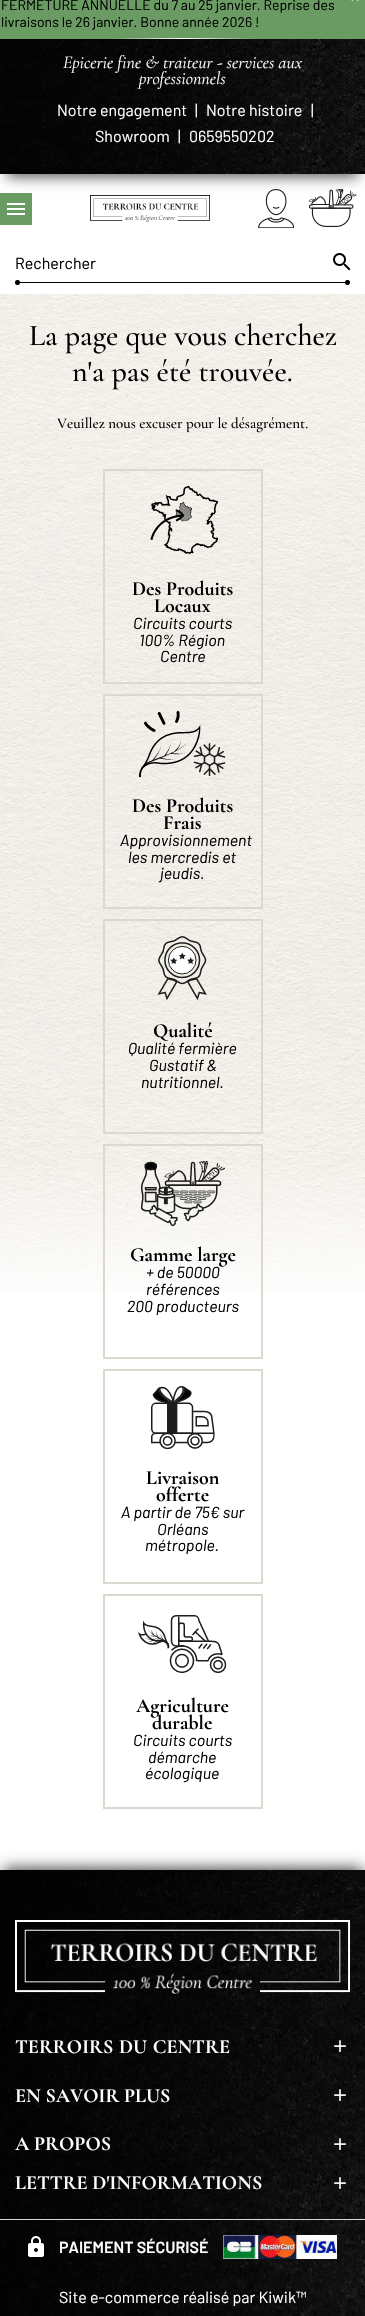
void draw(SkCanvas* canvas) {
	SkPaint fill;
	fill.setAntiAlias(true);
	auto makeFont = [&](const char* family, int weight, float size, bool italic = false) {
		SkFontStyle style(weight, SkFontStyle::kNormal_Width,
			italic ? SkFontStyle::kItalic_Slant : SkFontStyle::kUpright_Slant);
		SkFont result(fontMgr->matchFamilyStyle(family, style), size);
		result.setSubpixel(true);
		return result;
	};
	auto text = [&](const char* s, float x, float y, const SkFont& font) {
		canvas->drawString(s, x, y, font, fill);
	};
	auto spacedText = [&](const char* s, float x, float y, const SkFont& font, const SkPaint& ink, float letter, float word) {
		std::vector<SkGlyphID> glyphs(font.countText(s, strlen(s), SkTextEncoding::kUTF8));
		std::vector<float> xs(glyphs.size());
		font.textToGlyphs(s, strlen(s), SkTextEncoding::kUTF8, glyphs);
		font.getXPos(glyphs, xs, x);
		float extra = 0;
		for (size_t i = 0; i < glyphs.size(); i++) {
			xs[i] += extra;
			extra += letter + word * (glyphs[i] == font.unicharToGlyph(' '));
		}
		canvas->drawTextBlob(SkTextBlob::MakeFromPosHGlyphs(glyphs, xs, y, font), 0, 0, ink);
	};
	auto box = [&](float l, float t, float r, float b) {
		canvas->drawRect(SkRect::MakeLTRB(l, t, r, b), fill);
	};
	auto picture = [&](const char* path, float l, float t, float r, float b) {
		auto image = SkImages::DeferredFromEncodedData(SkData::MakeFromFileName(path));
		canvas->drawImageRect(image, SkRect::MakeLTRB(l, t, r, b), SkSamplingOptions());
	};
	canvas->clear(0xFFFFFFFF);
	{
		const SkColor colors[] = {0xFFFFFFFF, 0xFF6A9B63};
		const float stops[] = {0, 0.4f};
		fill.setShader(SkGradientShader::MakeRadial({183, 39}, 183, colors, stops, 2, SkTileMode::kClamp));
		fill.setAlpha(255);
	}
	box(0, 38, 365, 39);
	fill.setShader(nullptr);
	fill.setColor(0xFF5C5C5C);
	fill.setMaskFilter(SkMaskFilter::MakeBlur(kNormal_SkBlurStyle, 6.5f));
	canvas->drawRect(SkRect::MakeLTRB(7, 56, 358, 177), fill);
	fill.setMaskFilter(nullptr);
	fill.setColor(0xFF6A9B63);
	box(0, 0, 365, 38);
	picture("image0.png", 351, 0, 359, 1);
	picture("image1.png", 0, 39, 365, 174);
	box(0, 193, 32, 225);
	picture("image2.png", 7, 203, 25, 215);
	picture("image3.png", 90, 195, 210, 222);
	picture("image4.png", 258, 189, 294, 228);
	picture("image5.png", 308, 189, 357, 227);
	picture("image6.png", 15, 280, 350, 285);
	picture("image7.png", 333, 253, 351, 271);
	picture("image8.png", 0, 294, 365, 1293);
	fill.setStyle(SkPaint::kStroke_Style);
	fill.setStrokeWidth(2);
	fill.setColor(0xFFDBD8CE);
	canvas->drawRect(SkRect::MakeLTRB(104, 470, 262, 683), fill);
	picture("image9.png", 150, 486, 219, 554);
	canvas->drawRect(SkRect::MakeLTRB(104, 695, 262, 908), fill);
	picture("image10.png", 139, 711, 226, 778);
	canvas->drawRect(SkRect::MakeLTRB(104, 920, 262, 1133), fill);
	picture("image11.png", 157, 936, 207, 1001);
	canvas->drawRect(SkRect::MakeLTRB(104, 1145, 262, 1358), fill);
	picture("image12.png", 141, 1161, 225, 1227);
	canvas->drawRect(SkRect::MakeLTRB(104, 1370, 262, 1583), fill);
	picture("image13.png", 151, 1386, 215, 1450);
	canvas->drawRect(SkRect::MakeLTRB(104, 1595, 262, 1808), fill);
	picture("image14.png", 138, 1615, 227, 1673);
	fill.setStyle(SkPaint::kFill_Style);
	fill.setColor(0xBA000000);
	fill.setMaskFilter(SkMaskFilter::MakeBlur(kNormal_SkBlurStyle, 7));
	canvas->drawRect(SkRect::MakeLTRB(4, 1868, 363, 2314), fill);
	fill.setMaskFilter(nullptr);
	picture("image15.png", 0, 1870, 365, 2316);
	picture("image16.png", 15, 1920, 350, 1994);
	picture("image17.png", 334, 2040, 346, 2052);
	picture("image18.png", 334, 2089, 346, 2101);
	picture("image19.png", 334, 2138, 346, 2150);
	picture("image20.png", 334, 2177, 346, 2189);
	fill.setColor(0xFFDBD8CE);
	box(0, 2219, 365, 2220);
	picture("image21.png", 28, 2236, 44, 2257);
	picture("image22.png", 223, 2235, 337, 2259);
	auto font1 = makeFont("Barlow", 400, 14);
	fill.setColor(0xFF000000);
	text("FERMETURE ANNUELLE du 7 au 25 janvier. Reprise des", 1, 10, font1);
	text("livraisons le 26 janvier. Bonne année 2026 !", 1, 27, font1);
	auto font2 = makeFont("Cormorant Garamond", 400, 18, true);
	fill.setColor(0xFFFFFFFF);
	text("Epicerie fine & traiteur - services aux", 63, 68, font2);
	text("professionnels", 139, 84, font2);
	auto font3 = makeFont("Barlow", 400, 16);
	text("Notre engagement", 57, 116, font3);
	text("|", 195, 116, font3);
	text("Notre histoire", 206, 116, font3);
	text("|", 311, 116, font3);
	text("Showroom", 95, 142, font3);
	text("|", 178, 142, font3);
	text("0659550202", 189, 142, font3);
	fill.setColor(0xFF000000);
	text("Rechercher", 15, 269, font3);
	auto font4 = makeFont("Cormorant Garamond", 500, 30);
	text("La page que vous cherchez", 29, 345, font4);
	text("n'a pas été trouvée.", 72, 381, font4);
	auto font5 = makeFont("Cormorant Garamond", 500, 15);
	text("Veuillez nous excuser pour le désagrément.", 57, 428, font5);
	auto font6 = makeFont("Cormorant Garamond", 700, 20);
	text("Des Produits", 132, 595, font6);
	text("Locaux", 154, 612, font6);
	auto font7 = makeFont("Barlow", 400, 16, true);
	text("Circuits courts", 133, 629, font7);
	text("100% Région", 139, 646, font7);
	text("Centre", 160, 662, font7);
	text("Des Produits", 132, 812, font6);
	text("Frais", 163, 829, font6);
	text("Approvisionnement", 120, 846, font7);
	text("les mercredis et", 128, 863, font7);
	text("jeudis.", 160, 879, font7);
	text("Qualité", 153, 1037, font6);
	text("Qualité fermière", 128, 1054, font7);
	text("Gustatif &", 149, 1071, font7);
	text("nutritionnel.", 141, 1088, font7);
	text("Gamme large", 130, 1261, font6);
	text("+ de 50000", 146, 1278, font7);
	text("références", 146, 1295, font7);
	text("200 producteurs", 127, 1312, font7);
	text("Livraison", 146, 1484, font6);
	text("offerte", 156, 1501, font6);
	text("A partir de 75€ sur", 121, 1518, font7);
	text("Orléans", 157, 1535, font7);
	text("métropole.", 145, 1551, font7);
	text("Agriculture", 136, 1712, font6);
	text("durable", 152, 1729, font6);
	text("Circuits courts", 133, 1746, font7);
	text("démarche", 148, 1763, font7);
	text("écologique", 145, 1779, font7);
	fill.setColor(0xFFFFFFFF);
	spacedText("TERROIRS DU CENTRE", 15, 2053, font6, fill, 0, 1);
	text("EN SAVOIR PLUS", 15, 2102, font6);
	text("A PROPOS", 15, 2150, font6);
	text("LETTRE D'INFORMATIONS", 15, 2189, font6);
	auto font8 = makeFont("Barlow", 600, 16);
	text("PAIEMENT SÉCURISÉ", 59, 2253, font8);
	text("Site e-commerce réalisé par Kiwik™", 59, 2303, font3);
}
